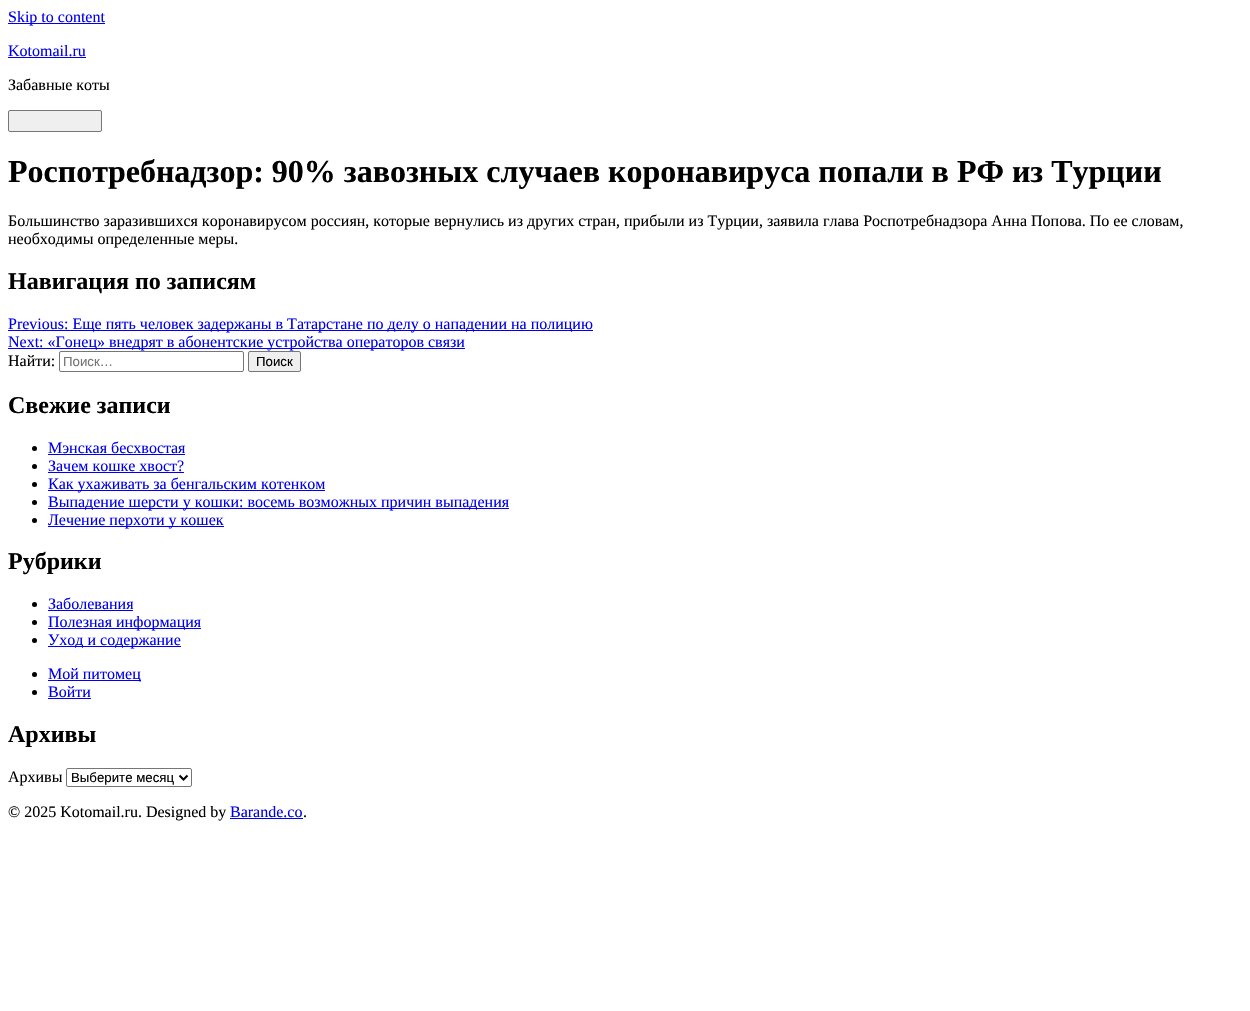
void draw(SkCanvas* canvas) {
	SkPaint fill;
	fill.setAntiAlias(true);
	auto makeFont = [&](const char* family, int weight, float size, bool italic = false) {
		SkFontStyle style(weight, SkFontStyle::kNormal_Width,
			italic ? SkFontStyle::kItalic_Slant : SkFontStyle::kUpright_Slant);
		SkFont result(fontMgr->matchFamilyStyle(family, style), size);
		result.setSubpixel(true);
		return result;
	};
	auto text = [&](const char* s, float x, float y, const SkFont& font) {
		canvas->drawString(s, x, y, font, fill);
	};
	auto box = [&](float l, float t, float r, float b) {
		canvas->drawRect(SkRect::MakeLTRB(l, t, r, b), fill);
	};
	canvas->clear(0xFFFFFFFF);
	fill.setColor(0xFF0000EE);
	box(8, 23, 105, 24);
	box(8, 57, 86, 58);
	fill.setColor(0xFFEFEFEF);
	canvas->drawRoundRect(SkRect::MakeLTRB(8.5f, 110.5f, 101.5f, 131.5f), 1.5f, 1.5f, fill);
	fill.setStyle(SkPaint::kStroke_Style);
	fill.setStrokeWidth(1);
	fill.setColor(0xFF767676);
	canvas->drawRoundRect(SkRect::MakeLTRB(8.5f, 110.5f, 101.5f, 131.5f), 1.5f, 1.5f, fill);
	fill.setStyle(SkPaint::kFill_Style);
	fill.setColor(0xFF0000EE);
	box(8, 330, 593, 331);
	box(8, 348, 465, 349);
	fill.setStyle(SkPaint::kStroke_Style);
	fill.setColor(0xFF767676);
	canvas->drawRoundRect(SkRect::MakeLTRB(59.5f, 351.5f, 243.5f, 371.5f), 1.5f, 1.5f, fill);
	fill.setStyle(SkPaint::kFill_Style);
	fill.setColor(0xFFEFEFEF);
	canvas->drawRoundRect(SkRect::MakeLTRB(248.5f, 351.5f, 300.5f, 371.5f), 1.5f, 1.5f, fill);
	fill.setStyle(SkPaint::kStroke_Style);
	fill.setColor(0xFF767676);
	canvas->drawRoundRect(SkRect::MakeLTRB(248.5f, 351.5f, 300.5f, 371.5f), 1.5f, 1.5f, fill);
	fill.setStyle(SkPaint::kFill_Style);
	fill.setColor(0xFF000000);
	canvas->drawCircle(34.5f, 448.5f, 2.5f, fill);
	fill.setColor(0xFF0000EE);
	box(48, 454, 185, 455);
	fill.setColor(0xFF000000);
	canvas->drawCircle(34.5f, 466.5f, 2.5f, fill);
	fill.setColor(0xFF0000EE);
	box(48, 472, 184, 473);
	fill.setColor(0xFF000000);
	canvas->drawCircle(34.5f, 484.5f, 2.5f, fill);
	fill.setColor(0xFF0000EE);
	box(48, 490, 325, 491);
	fill.setColor(0xFF000000);
	canvas->drawCircle(34.5f, 502.5f, 2.5f, fill);
	fill.setColor(0xFF0000EE);
	box(48, 508, 509, 509);
	fill.setColor(0xFF000000);
	canvas->drawCircle(34.5f, 520.5f, 2.5f, fill);
	fill.setColor(0xFF0000EE);
	box(48, 526, 224, 527);
	fill.setColor(0xFF000000);
	canvas->drawCircle(34.5f, 604.5f, 2.5f, fill);
	fill.setColor(0xFF0000EE);
	box(48, 610, 133, 611);
	fill.setColor(0xFF000000);
	canvas->drawCircle(34.5f, 622.5f, 2.5f, fill);
	fill.setColor(0xFF0000EE);
	box(48, 628, 201, 629);
	fill.setColor(0xFF000000);
	canvas->drawCircle(34.5f, 640.5f, 2.5f, fill);
	fill.setColor(0xFF0000EE);
	box(48, 646, 181, 647);
	fill.setColor(0xFF000000);
	canvas->drawCircle(34.5f, 674.5f, 2.5f, fill);
	fill.setColor(0xFF0000EE);
	box(48, 680, 141, 681);
	fill.setColor(0xFF000000);
	canvas->drawCircle(34.5f, 692.5f, 2.5f, fill);
	fill.setColor(0xFF0000EE);
	box(48, 698, 91, 699);
	fill.setStyle(SkPaint::kStroke_Style);
	fill.setColor(0xFF767676);
	canvas->drawRoundRect(SkRect::MakeLTRB(66.5f, 768.5f, 191.5f, 786.5f), 1.5f, 1.5f, fill);
	fill.setStrokeWidth(2);
	fill.setColor(0xFF000000);
	canvas->drawPath(SkPathBuilder().moveTo(179.5f, 775.5f).lineTo(183.5f, 779.5f).lineTo(187.5f, 775.5f).detach(), fill);
	fill.setStyle(SkPaint::kFill_Style);
	fill.setColor(0xFF0000EE);
	box(230, 818, 303, 819);
	auto font1 = makeFont("Liberation Serif", 400, 16);
	text("Skip to content", 8, 22, font1);
	text("Kotomail.ru", 8, 56, font1);
	fill.setColor(0xFF000000);
	text("Забавные коты", 8, 90, font1);
	auto font2 = makeFont("Liberation Serif", 700, 32);
	text("Роспотребнадзор: 90% завозных случаев коронавируса попали в РФ из Турции", 8, 182, font2);
	text("Большинство заразившихся коронавирусом россиян, которые вернулись из других стран, прибыли из Турции, заявила глава Роспотребнадзора Анна Попова. По ее словам,", 8, 226, font1);
	text("необходимы определенные меры.", 8, 244, font1);
	auto font3 = makeFont("Liberation Serif", 700, 24);
	text("Навигация по записям", 8, 289, font3);
	fill.setColor(0xFF0000EE);
	text("Previous: Еще пять человек задержаны в Татарстане по делу о нападении на полицию", 8, 329, font1);
	text("Next: «Гонец» внедрят в абонентские устройства операторов связи", 8, 347, font1);
	fill.setColor(0xFF000000);
	text("Найти:", 8, 366, font1);
	auto font4 = makeFont("Liberation Sans", 400, 13.25f);
	fill.setColor(0xFF757575);
	text("Поиск…", 63, 366, font4);
	fill.setColor(0xFF000000);
	text("Поиск", 256, 366, font4);
	text("Свежие записи", 8, 413, font3);
	fill.setColor(0xFF0000EE);
	text("Мэнская бесхвостая", 48, 453, font1);
	text("Зачем кошке хвост?", 48, 471, font1);
	text("Как ухаживать за бенгальским котенком", 48, 489, font1);
	text("Выпадение шерсти у кошки: восемь возможных причин выпадения", 48, 507, font1);
	text("Лечение перхоти у кошек", 48, 525, font1);
	fill.setColor(0xFF000000);
	text("Рубрики", 8, 569, font3);
	fill.setColor(0xFF0000EE);
	text("Заболевания", 48, 609, font1);
	text("Полезная информация", 48, 627, font1);
	text("Уход и содержание", 48, 645, font1);
	text("Мой питомец", 48, 679, font1);
	text("Войти", 48, 697, font1);
	fill.setColor(0xFF000000);
	text("Архивы", 8, 742, font3);
	text("Архивы", 8, 782, font1);
	text("Выберите месяц", 71, 782, font4);
	text("© 2025 Kotomail.ru. Designed by", 8, 817, font1);
	fill.setColor(0xFF0000EE);
	text("Barande.co", 230, 817, font1);
	fill.setColor(0xFF000000);
	text(".", 303, 817, font1);
}
